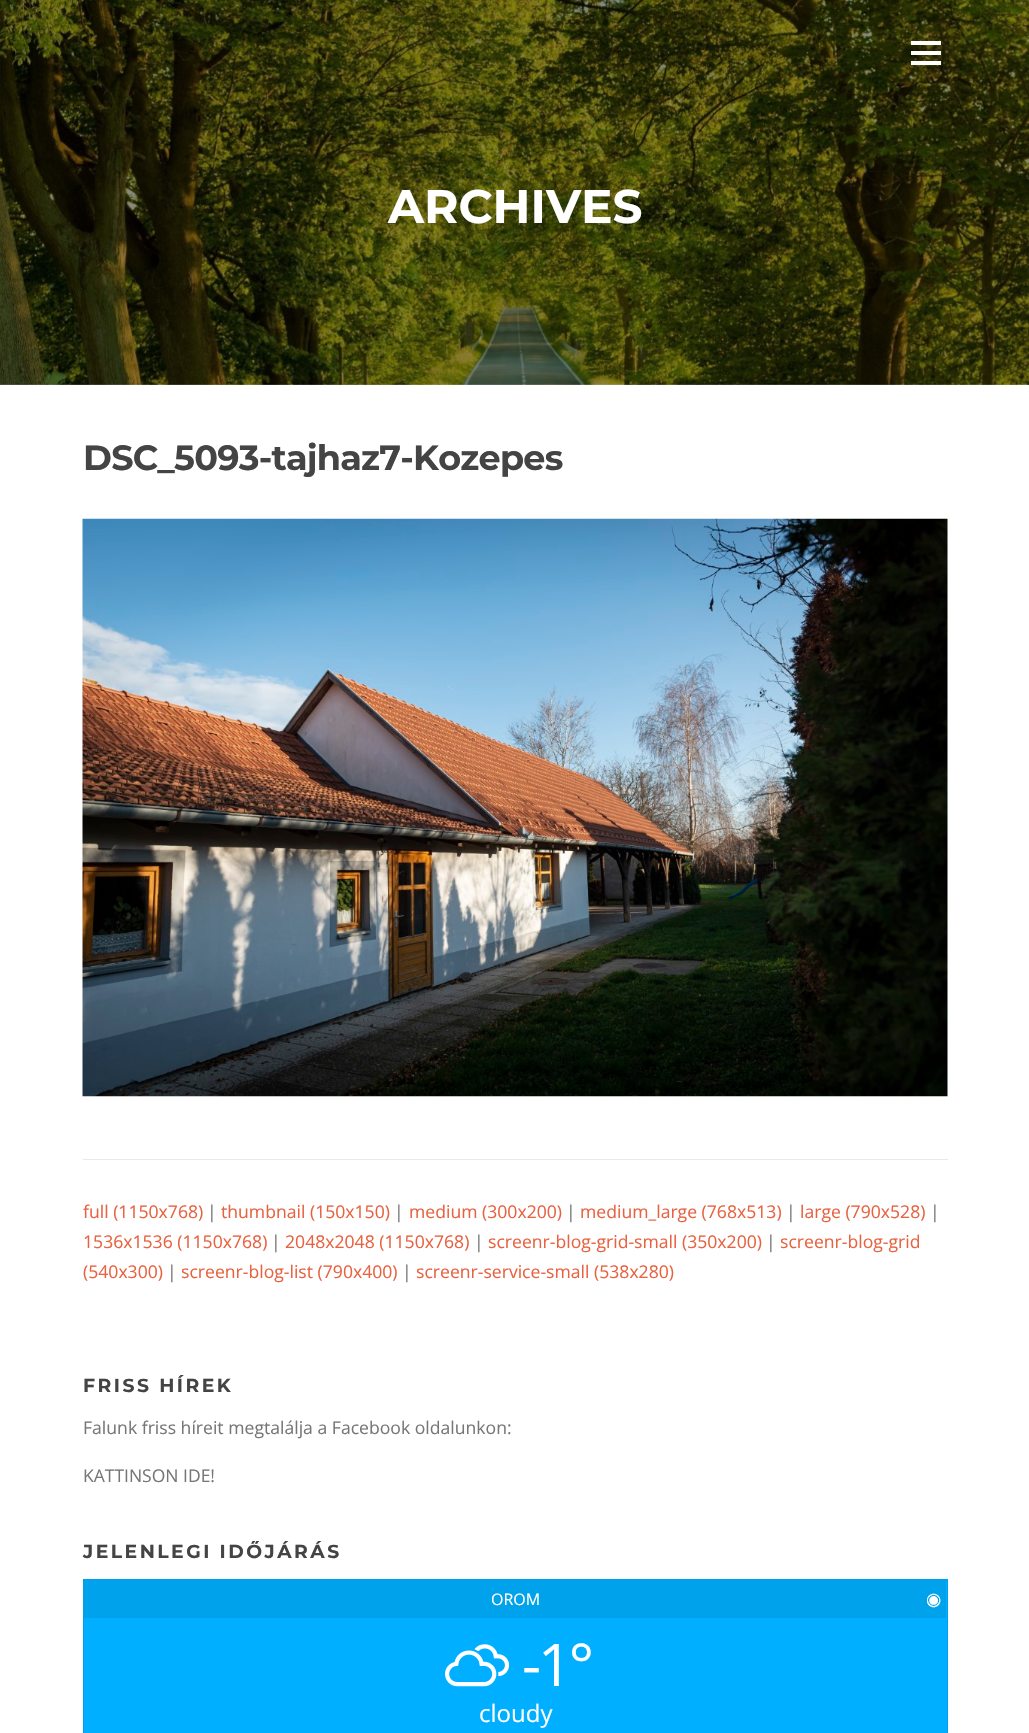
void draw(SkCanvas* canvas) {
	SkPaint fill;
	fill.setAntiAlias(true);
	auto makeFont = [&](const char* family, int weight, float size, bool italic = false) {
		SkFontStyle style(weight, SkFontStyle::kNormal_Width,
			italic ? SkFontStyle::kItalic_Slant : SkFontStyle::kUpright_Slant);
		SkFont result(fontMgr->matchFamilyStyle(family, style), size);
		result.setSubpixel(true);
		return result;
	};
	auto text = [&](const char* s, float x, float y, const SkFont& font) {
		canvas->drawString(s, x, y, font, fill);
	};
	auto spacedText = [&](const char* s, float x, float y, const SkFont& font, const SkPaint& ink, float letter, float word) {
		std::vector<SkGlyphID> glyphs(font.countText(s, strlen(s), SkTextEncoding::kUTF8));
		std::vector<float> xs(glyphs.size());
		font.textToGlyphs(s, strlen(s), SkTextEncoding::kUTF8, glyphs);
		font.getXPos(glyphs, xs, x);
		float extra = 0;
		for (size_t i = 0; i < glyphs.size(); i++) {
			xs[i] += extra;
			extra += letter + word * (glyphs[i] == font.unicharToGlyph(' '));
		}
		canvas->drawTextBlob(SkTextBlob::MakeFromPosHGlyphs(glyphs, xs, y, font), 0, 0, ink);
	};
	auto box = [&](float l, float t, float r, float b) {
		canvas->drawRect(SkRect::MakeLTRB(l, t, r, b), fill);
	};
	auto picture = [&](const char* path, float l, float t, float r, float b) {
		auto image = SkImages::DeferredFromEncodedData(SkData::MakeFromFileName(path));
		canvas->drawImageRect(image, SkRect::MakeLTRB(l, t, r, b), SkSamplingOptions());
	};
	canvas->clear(0xFFFFFFFF);
	picture("image0.png", 0, 0, 1029, 385);
	fill.setColor(0xFFFFFFFF);
	box(911, 51, 941, 55);
	box(911, 41, 941, 45);
	box(911, 61, 941, 65);
	picture("image1.png", 82, 518, 948, 1097);
	fill.setColor(0xFFE9E9E9);
	box(83, 1159, 948, 1160);
	fill.setColor(0xFF00AFFF);
	canvas->drawRect(SkRect::MakeLTRB(83.5f, 1579.5f, 947.5f, 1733.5f), fill);
	fill.setStyle(SkPaint::kStroke_Style);
	fill.setStrokeWidth(1);
	fill.setColor(0xFF009EEE);
	canvas->drawRect(SkRect::MakeLTRB(83.5f, 1579.5f, 947.5f, 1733.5f), fill);
	fill.setStyle(SkPaint::kFill_Style);
	fill.setColor(0xFF00A2EC);
	box(84, 1580, 946, 1618);
	fill.setColor(0xFF009EEE);
	box(84, 1616, 946, 1617);
	picture("image2.png", 445, 1644, 510, 1687);
	auto font1 = makeFont("Montserrat", 700, 47);
	fill.setColor(0xFFFFFFFF);
	text("ARCHIVES", 388, 223, font1);
	auto font2 = makeFont("Montserrat", 700, 35);
	fill.setColor(0xFF444444);
	spacedText("DSC_5093-tajhaz7-Kozepes", 83, 470, font2, fill, -0.75f, 0);
	auto font3 = makeFont("Open Sans", 400, 17.6f);
	fill.setColor(0xFFE86240);
	text("full (1150x768)", 83, 1218, font3);
	fill.setColor(0xFF777777);
	text("|", 207, 1218, font3);
	fill.setColor(0xFFE86240);
	text("thumbnail (150x150)", 221, 1218, font3);
	fill.setColor(0xFF777777);
	text("|", 394, 1218, font3);
	fill.setColor(0xFFE86240);
	text("medium (300x200)", 409, 1218, font3);
	fill.setColor(0xFF777777);
	text("|", 566, 1218, font3);
	fill.setColor(0xFFE86240);
	text("medium_large (768x513)", 580, 1218, font3);
	fill.setColor(0xFF777777);
	text("|", 786, 1218, font3);
	fill.setColor(0xFFE86240);
	text("large (790x528)", 800, 1218, font3);
	fill.setColor(0xFF777777);
	text("|", 930, 1218, font3);
	fill.setColor(0xFFE86240);
	text("1536x1536 (1150x768)", 83, 1248, font3);
	fill.setColor(0xFF777777);
	text("|", 271, 1248, font3);
	fill.setColor(0xFFE86240);
	text("2048x2048 (1150x768)", 285, 1248, font3);
	fill.setColor(0xFF777777);
	text("|", 474, 1248, font3);
	fill.setColor(0xFFE86240);
	text("screenr-blog-grid-small (350x200)", 488, 1248, font3);
	fill.setColor(0xFF777777);
	text("|", 766, 1248, font3);
	fill.setColor(0xFFE86240);
	text("screenr-blog-grid", 780, 1248, font3);
	text("(540x300)", 83, 1278, font3);
	fill.setColor(0xFF777777);
	text("|", 167, 1278, font3);
	fill.setColor(0xFFE86240);
	text("screenr-blog-list (790x400)", 181, 1278, font3);
	fill.setColor(0xFF777777);
	text("|", 402, 1278, font3);
	fill.setColor(0xFFE86240);
	text("screenr-service-small (538x280)", 416, 1278, font3);
	auto font4 = makeFont("Montserrat", 700, 18.75f);
	fill.setColor(0xFF444444);
	spacedText("FRISS HÍREK", 83, 1392, font4, fill, 2.5f, 0);
	fill.setColor(0xFF777777);
	text("Falunk friss híreit megtalálja a Facebook oldalunkon:", 83, 1434, font3);
	auto font5 = makeFont("Open Sans", 400, 17.5f);
	text("KATTINSON IDE!", 83, 1482, font5);
	fill.setColor(0xFF444444);
	spacedText("JELENLEGI IDŐJÁRÁS", 83, 1558, font4, fill, 2.5f, 0);
	auto font6 = makeFont("Open Sans", 400, 16);
	fill.setColor(0xFFFFFFFF);
	text("OROM", 491, 1605, font6);
	auto font7 = makeFont("DejaVu Sans", 400, 17.5f);
	text("◉", 926, 1605, font7);
	auto font8 = makeFont("Open Sans", 400, 59);
	spacedText("-1°", 522, 1686, font8, fill, -3, 0);
	auto font9 = makeFont("Open Sans", 400, 24);
	text("cloudy", 479, 1722, font9);
}
